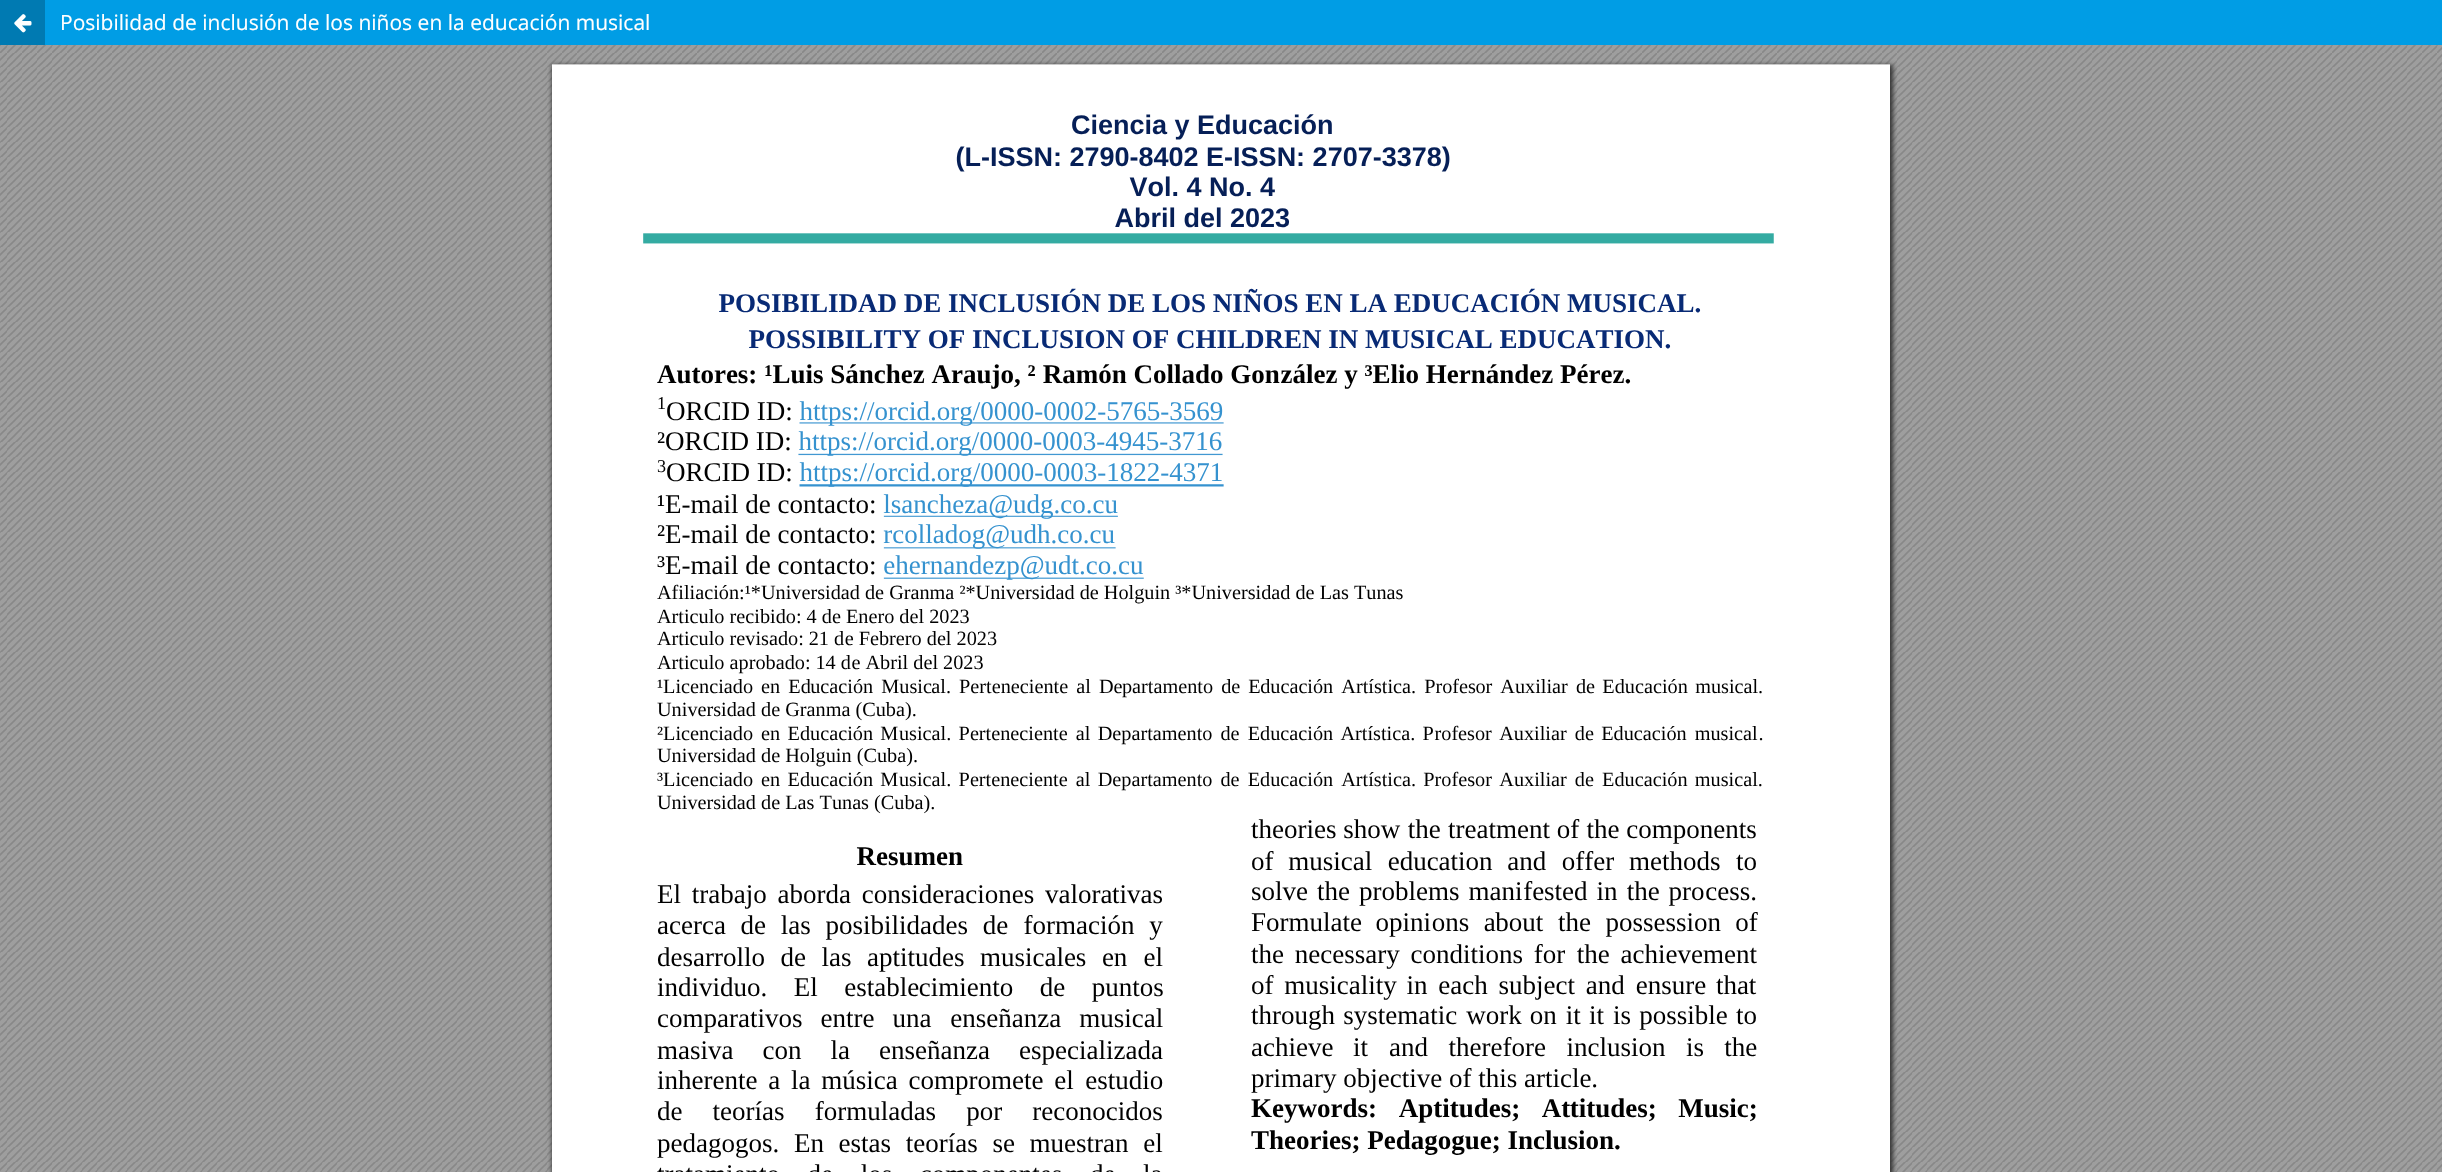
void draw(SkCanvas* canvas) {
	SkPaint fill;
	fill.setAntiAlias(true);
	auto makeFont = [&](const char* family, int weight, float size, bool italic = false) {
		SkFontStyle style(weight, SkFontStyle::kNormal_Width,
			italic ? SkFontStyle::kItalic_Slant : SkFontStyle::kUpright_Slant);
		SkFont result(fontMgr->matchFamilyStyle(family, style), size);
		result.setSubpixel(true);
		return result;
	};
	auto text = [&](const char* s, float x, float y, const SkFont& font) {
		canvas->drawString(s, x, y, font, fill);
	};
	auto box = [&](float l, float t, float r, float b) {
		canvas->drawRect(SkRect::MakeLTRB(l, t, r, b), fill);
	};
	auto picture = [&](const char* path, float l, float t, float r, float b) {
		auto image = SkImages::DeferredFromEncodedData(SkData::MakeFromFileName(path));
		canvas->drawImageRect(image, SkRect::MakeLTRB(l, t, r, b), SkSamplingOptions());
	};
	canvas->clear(0xFFFFFFFF);
	fill.setColor(0xFF009DE5);
	box(45, 0, 2442, 45);
	fill.setColor(0xFF007AB2);
	box(0, 0, 45, 45);
	picture("image0.png", 14, 14, 32, 33);
	picture("image1.png", 0, 45, 2442, 1172);
	auto font1 = makeFont("Open Sans", 400, 21);
	fill.setColor(0xFFFFFFFF);
	text("Posibilidad de inclusión de los niños en la educación musical", 60, 30, font1);
}
